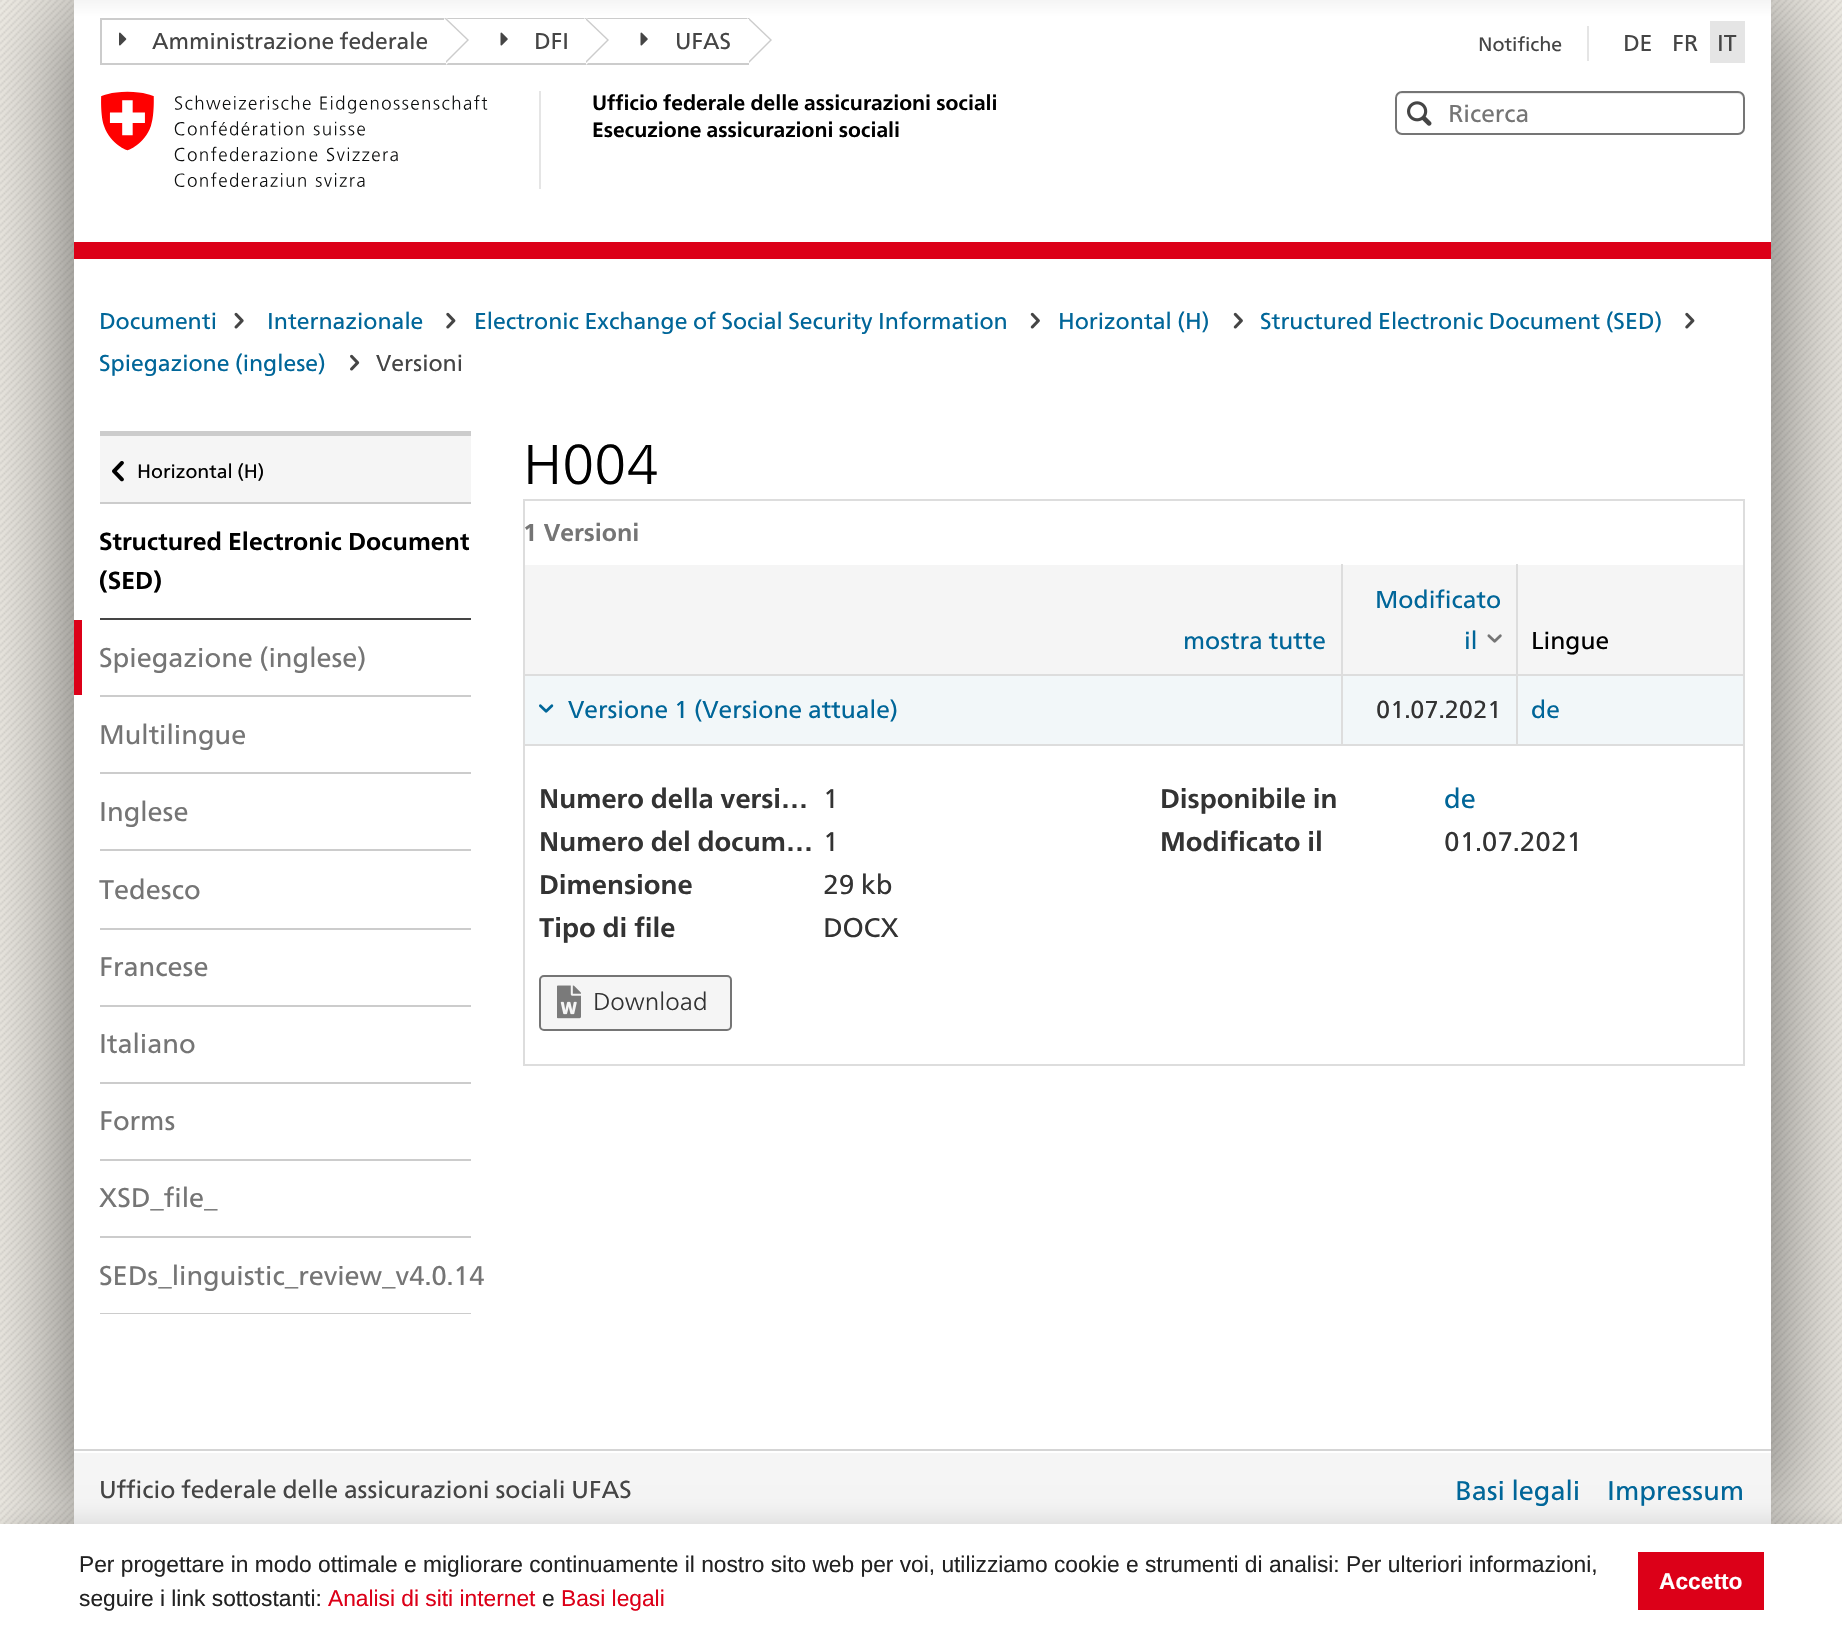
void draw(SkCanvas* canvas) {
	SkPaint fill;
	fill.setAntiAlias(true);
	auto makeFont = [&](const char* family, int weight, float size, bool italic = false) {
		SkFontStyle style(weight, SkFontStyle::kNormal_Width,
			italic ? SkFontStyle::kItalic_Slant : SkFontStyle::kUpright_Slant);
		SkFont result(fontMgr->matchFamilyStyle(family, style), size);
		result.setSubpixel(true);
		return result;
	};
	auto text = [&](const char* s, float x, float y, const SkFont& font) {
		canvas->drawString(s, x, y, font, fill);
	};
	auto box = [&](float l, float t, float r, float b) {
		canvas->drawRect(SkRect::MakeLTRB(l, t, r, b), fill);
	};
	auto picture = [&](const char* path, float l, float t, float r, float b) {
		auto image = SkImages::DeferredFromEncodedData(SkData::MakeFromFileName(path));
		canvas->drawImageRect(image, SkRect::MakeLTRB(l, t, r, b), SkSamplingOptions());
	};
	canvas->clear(0xFFFFFFFF);
	picture("image0.png", 0, 0, 1842, 1524);
	fill.setColor(0x99000000);
	fill.setMaskFilter(SkMaskFilter::MakeBlur(kNormal_SkBlurStyle, 52.5f));
	canvas->drawRect(SkRect::MakeLTRB(74, 0, 1771, 1528), fill);
	fill.setMaskFilter(nullptr);
	fill.setColor(0xFFFFFFFF);
	box(74, 259, 1771, 1449);
	{
		const SkColor colors[] = {0xFFF5F5F5, 0xFFFFFFFF, 0xFFFFFFFF};
		const float stops[] = {0, 0.07f, 1};
		const SkPoint ends[] = {{922, 0}, {922, 242}};
		fill.setShader(SkGradientShader::MakeLinear(ends, colors, stops, 3, SkTileMode::kClamp));
		fill.setAlpha(255);
	}
	box(74, 0, 1771, 242);
	fill.setShader(nullptr);
	fill.setColor(0xFFCCCCCC);
	box(100, 18, 446, 20);
	box(100, 63, 446, 65);
	box(100, 18, 102, 65);
	canvas->drawPath(SkPathBuilder().moveTo(446, 63).lineTo(446, 18).lineTo(469, 40).close().detach(), fill);
	fill.setColor(0xFFFFFFFF);
	canvas->drawPath(SkPathBuilder().moveTo(444, 63).lineTo(444, 18).lineTo(467, 40).close().detach(), fill);
	picture("image1.png", 119, 32, 127, 46);
	fill.setColor(0xFFCCCCCC);
	canvas->drawPath(SkPathBuilder().moveTo(446, 18).lineTo(586, 18).lineTo(586, 19).lineTo(448, 19).close().detach(), fill);
	canvas->drawPath(SkPathBuilder().moveTo(586, 65).lineTo(446, 65).lineTo(448, 63).lineTo(586, 63).close().detach(), fill);
	canvas->drawPath(SkPathBuilder().moveTo(586, 63).lineTo(586, 18).lineTo(609, 40).close().detach(), fill);
	fill.setColor(0xFFFFFFFF);
	canvas->drawPath(SkPathBuilder().moveTo(584, 63).lineTo(584, 18).lineTo(607, 40).close().detach(), fill);
	picture("image2.png", 500, 32, 508, 46);
	fill.setColor(0xFFCCCCCC);
	canvas->drawPath(SkPathBuilder().moveTo(586, 18).lineTo(749, 18).lineTo(749, 19).lineTo(588, 19).close().detach(), fill);
	canvas->drawPath(SkPathBuilder().moveTo(749, 65).lineTo(586, 65).lineTo(588, 63).lineTo(749, 63).close().detach(), fill);
	canvas->drawPath(SkPathBuilder().moveTo(749, 63).lineTo(749, 18).lineTo(772, 40).close().detach(), fill);
	fill.setColor(0xFFFFFFFF);
	canvas->drawPath(SkPathBuilder().moveTo(747, 63).lineTo(747, 18).lineTo(770, 40).close().detach(), fill);
	picture("image2.png", 640, 32, 648, 46);
	fill.setColor(0xFFE5E5E5);
	box(1587, 26, 1589, 61);
	box(1710, 21, 1745, 63);
	box(539, 91, 541, 189);
	picture("image3.png", 101, 91, 488, 187);
	fill.setColor(0xFFECECEC);
	canvas->drawPath(SkPathBuilder().moveTo(1402, 94).lineTo(1738, 94).cubicTo(1741, 94, 1743, 97, 1743, 100).lineTo(1743, 98).cubicTo(1743, 95, 1741, 93, 1738, 93).lineTo(1402, 93).cubicTo(1400, 93, 1398, 95, 1397, 97).cubicTo(1398, 95, 1400, 94, 1402, 94).close().detach(), fill);
	fill.setStyle(SkPaint::kStroke_Style);
	fill.setStrokeWidth(2);
	fill.setColor(0xFF757575);
	canvas->drawRoundRect(SkRect::MakeLTRB(1396, 92, 1744, 134), 6, 6, fill);
	picture("image4.png", 1407, 101, 1432, 126);
	fill.setStyle(SkPaint::kFill_Style);
	fill.setColor(0xFFDC0018);
	box(74, 242, 1771, 259);
	picture("image5.png", 234, 312, 244, 329);
	picture("image6.png", 446, 312, 456, 329);
	picture("image7.png", 1030, 312, 1040, 329);
	picture("image7.png", 1233, 312, 1243, 329);
	picture("image6.png", 1685, 312, 1695, 329);
	picture("image8.png", 350, 354, 360, 371);
	fill.setColor(0xFFF5F5F5);
	box(100, 436, 471, 502);
	fill.setColor(0xFFCCCCCC);
	box(100, 431, 471, 436);
	box(100, 502, 471, 504);
	picture("image9.png", 112, 461, 124, 482);
	fill.setColor(0xFF454545);
	box(100, 618, 471, 620);
	fill.setColor(0xFFCCCCCC);
	box(100, 695, 471, 697);
	fill.setColor(0xFFDC0018);
	box(74, 620, 82, 695);
	fill.setColor(0xFFCCCCCC);
	box(100, 772, 471, 774);
	box(100, 849, 471, 851);
	box(100, 928, 471, 930);
	box(100, 1005, 471, 1007);
	box(100, 1082, 471, 1084);
	box(100, 1159, 471, 1161);
	box(100, 1236, 471, 1238);
	box(100, 1313, 471, 1314);
	fill.setColor(0xFFDDDDDD);
	box(523, 499, 1745, 501);
	box(1743, 499, 1745, 1066);
	box(523, 1064, 1745, 1066);
	box(523, 499, 525, 1066);
	fill.setColor(0xFFF5F5F5);
	box(525, 565, 1341, 674);
	box(1343, 565, 1516, 674);
	fill.setColor(0xFFDDDDDD);
	box(1516, 674, 1745, 676);
	box(523, 744, 1745, 746);
	box(1516, 674, 1518, 746);
	box(1341, 674, 1517, 676);
	box(1341, 674, 1343, 746);
	box(523, 674, 1342, 676);
	box(1341, 564, 1343, 676);
	picture("image10.png", 1487, 634, 1502, 643);
	fill.setColor(0xFFF5F5F5);
	box(1518, 565, 1743, 674);
	fill.setColor(0xFFDDDDDD);
	box(1516, 564, 1518, 676);
	fill.setColor(0xFFF2F7F9);
	box(525, 676, 1341, 744);
	picture("image11.png", 539, 704, 554, 713);
	box(1343, 676, 1516, 744);
	box(1518, 676, 1743, 744);
	fill.setColor(0xFFF5F5F5);
	canvas->drawRoundRect(SkRect::MakeLTRB(540, 976, 731, 1030), 4, 4, fill);
	fill.setStyle(SkPaint::kStroke_Style);
	fill.setColor(0xFF757575);
	canvas->drawRoundRect(SkRect::MakeLTRB(540, 976, 731, 1030), 4, 4, fill);
	picture("image12.png", 557, 985, 581, 1019);
	fill.setStyle(SkPaint::kFill_Style);
	fill.setColor(0xFFF5F5F5);
	box(74, 1453, 1771, 1524);
	fill.setColor(0xFFD5D5D5);
	box(74, 1449, 1771, 1451);
	fill.setColor(0xFFFFFFFF);
	box(74, 1451, 1771, 1453);
	fill.setColor(0x26000000);
	fill.setMaskFilter(SkMaskFilter::MakeBlur(kNormal_SkBlurStyle, 13));
	canvas->drawRect(SkRect::MakeLTRB(0, 1524, 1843, 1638), fill);
	fill.setMaskFilter(nullptr);
	fill.setColor(0xFFFFFFFF);
	box(0, 1524, 1842, 1637);
	fill.setColor(0xFFDC0018);
	box(1638, 1552, 1764, 1610);
	auto font1 = makeFont("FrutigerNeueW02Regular", 400, 22.75f);
	fill.setColor(0xFF454545);
	text("Amministrazione federale", 152, 49, font1);
	text("DFI", 534, 49, font1);
	text("UFAS", 675, 49, font1);
	auto font2 = makeFont("FrutigerNeueW02Regular", 400, 19.5f);
	text("Notifiche", 1478, 51, font2);
	auto font3 = makeFont("FrutigerNeueW02Regular", 400, 22.9f);
	text("DE", 1623, 51, font3);
	text("FR", 1672, 51, font3);
	text("IT", 1717, 51, font3);
	auto font4 = makeFont("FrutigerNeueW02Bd", 700, 20.8f);
	fill.setColor(0xFF000000);
	text("Ufficio federale delle assicurazioni sociali", 592, 110, font4);
	text("Esecuzione assicurazioni sociali", 592, 137, font4);
	auto font5 = makeFont("FrutigerNeueW02Regular", 400, 24.5f);
	fill.setColor(0xFF757575);
	text("Ricerca", 1448, 122, font5);
	fill.setColor(0xFF006699);
	text("Documenti", 99, 329, font3);
	text("Internazionale", 267, 329, font3);
	text("Electronic Exchange of Social Security Information", 474, 329, font3);
	text("Horizontal (H)", 1058, 329, font3);
	text("Structured Electronic Document (SED)", 1260, 329, font3);
	text("Spiegazione (inglese)", 99, 371, font3);
	fill.setColor(0xFF454545);
	text("Versioni", 376, 371, font3);
	auto font6 = makeFont("FrutigerNeueW02Regular", 400, 19.25f);
	fill.setColor(0xFF000000);
	text("Horizontal (H)", 137, 478, font6);
	auto font7 = makeFont("FrutigerNeueW02Bd", 700, 24.5f);
	text("Structured Electronic Document", 99, 550, font7);
	text("(SED)", 99, 589, font7);
	auto font8 = makeFont("FrutigerNeueW02Regular", 400, 27);
	fill.setColor(0xFF757575);
	text("Spiegazione (inglese)", 99, 667, font8);
	text("Multilingue", 99, 744, font8);
	text("Inglese", 99, 821, font8);
	text("Tedesco", 99, 899, font8);
	text("Francese", 99, 976, font8);
	text("Italiano", 99, 1053, font8);
	text("Forms", 99, 1130, font8);
	text("XSD_file_", 99, 1207, font8);
	text("SEDs_linguistic_review_v4.0.14", 99, 1285, font8);
	auto font9 = makeFont("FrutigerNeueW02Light", 300, 56);
	fill.setColor(0xFF000000);
	text("H004", 523, 484, font9);
	fill.setColor(0xFF757575);
	text("1 Versioni", 523, 541, font7);
	fill.setColor(0xFF006699);
	text("mostra tutte", 1183, 649, font5);
	text("Modificato", 1375, 608, font5);
	text("il", 1464, 649, font5);
	fill.setColor(0xFF000000);
	text("Lingue", 1531, 649, font5);
	fill.setColor(0xFF006699);
	text("Versione 1 (Versione attuale)", 568, 718, font5);
	fill.setColor(0xFF333333);
	text("01.07.2021", 1376, 718, font5);
	fill.setColor(0xFF006699);
	text("de", 1531, 718, font5);
	auto font10 = makeFont("FrutigerNeueW02Bd", 700, 27);
	fill.setColor(0xFF333333);
	text("Numero della versi…", 539, 808, font10);
	text("1", 823, 808, font8);
	text("Numero del docum…", 539, 851, font10);
	text("1", 823, 851, font8);
	text("Dimensione", 539, 894, font10);
	text("29 kb", 823, 894, font8);
	text("Tipo di file", 539, 937, font10);
	text("DOCX", 823, 937, font8);
	text("Disponibile in", 1160, 808, font10);
	fill.setColor(0xFF006699);
	text("de", 1444, 808, font8);
	fill.setColor(0xFF333333);
	text("Modificato il", 1160, 851, font10);
	text("01.07.2021", 1444, 851, font8);
	auto font11 = makeFont("FrutigerNeueW02Light", 300, 24.5f);
	text("Download", 593, 1010, font11);
	fill.setColor(0xFF454545);
	text("Ufficio federale delle assicurazioni sociali UFAS", 99, 1498, font5);
	fill.setColor(0xFF006699);
	text("Basi legali", 1455, 1500, font8);
	text("Impressum", 1607, 1500, font8);
	auto font12 = makeFont("Liberation Sans", 400, 22.75f);
	fill.setColor(0xFF222222);
	text("Per progettare in modo ottimale e migliorare continuamente il nostro sito web per voi, utilizziamo cookie e strumenti di analisi: Per ulteriori informazioni,", 79, 1572, font12);
	text("seguire i link sottostanti:", 79, 1606, font12);
	fill.setColor(0xFFDC0018);
	text("Analisi di siti internet", 328, 1606, font12);
	fill.setColor(0xFF222222);
	text("e", 542, 1606, font12);
	fill.setColor(0xFFDC0018);
	text("Basi legali", 561, 1606, font12);
	auto font13 = makeFont("Liberation Sans", 700, 22.75f);
	fill.setColor(0xFFFFFFFF);
	text("Accetto", 1659, 1589, font13);
}
